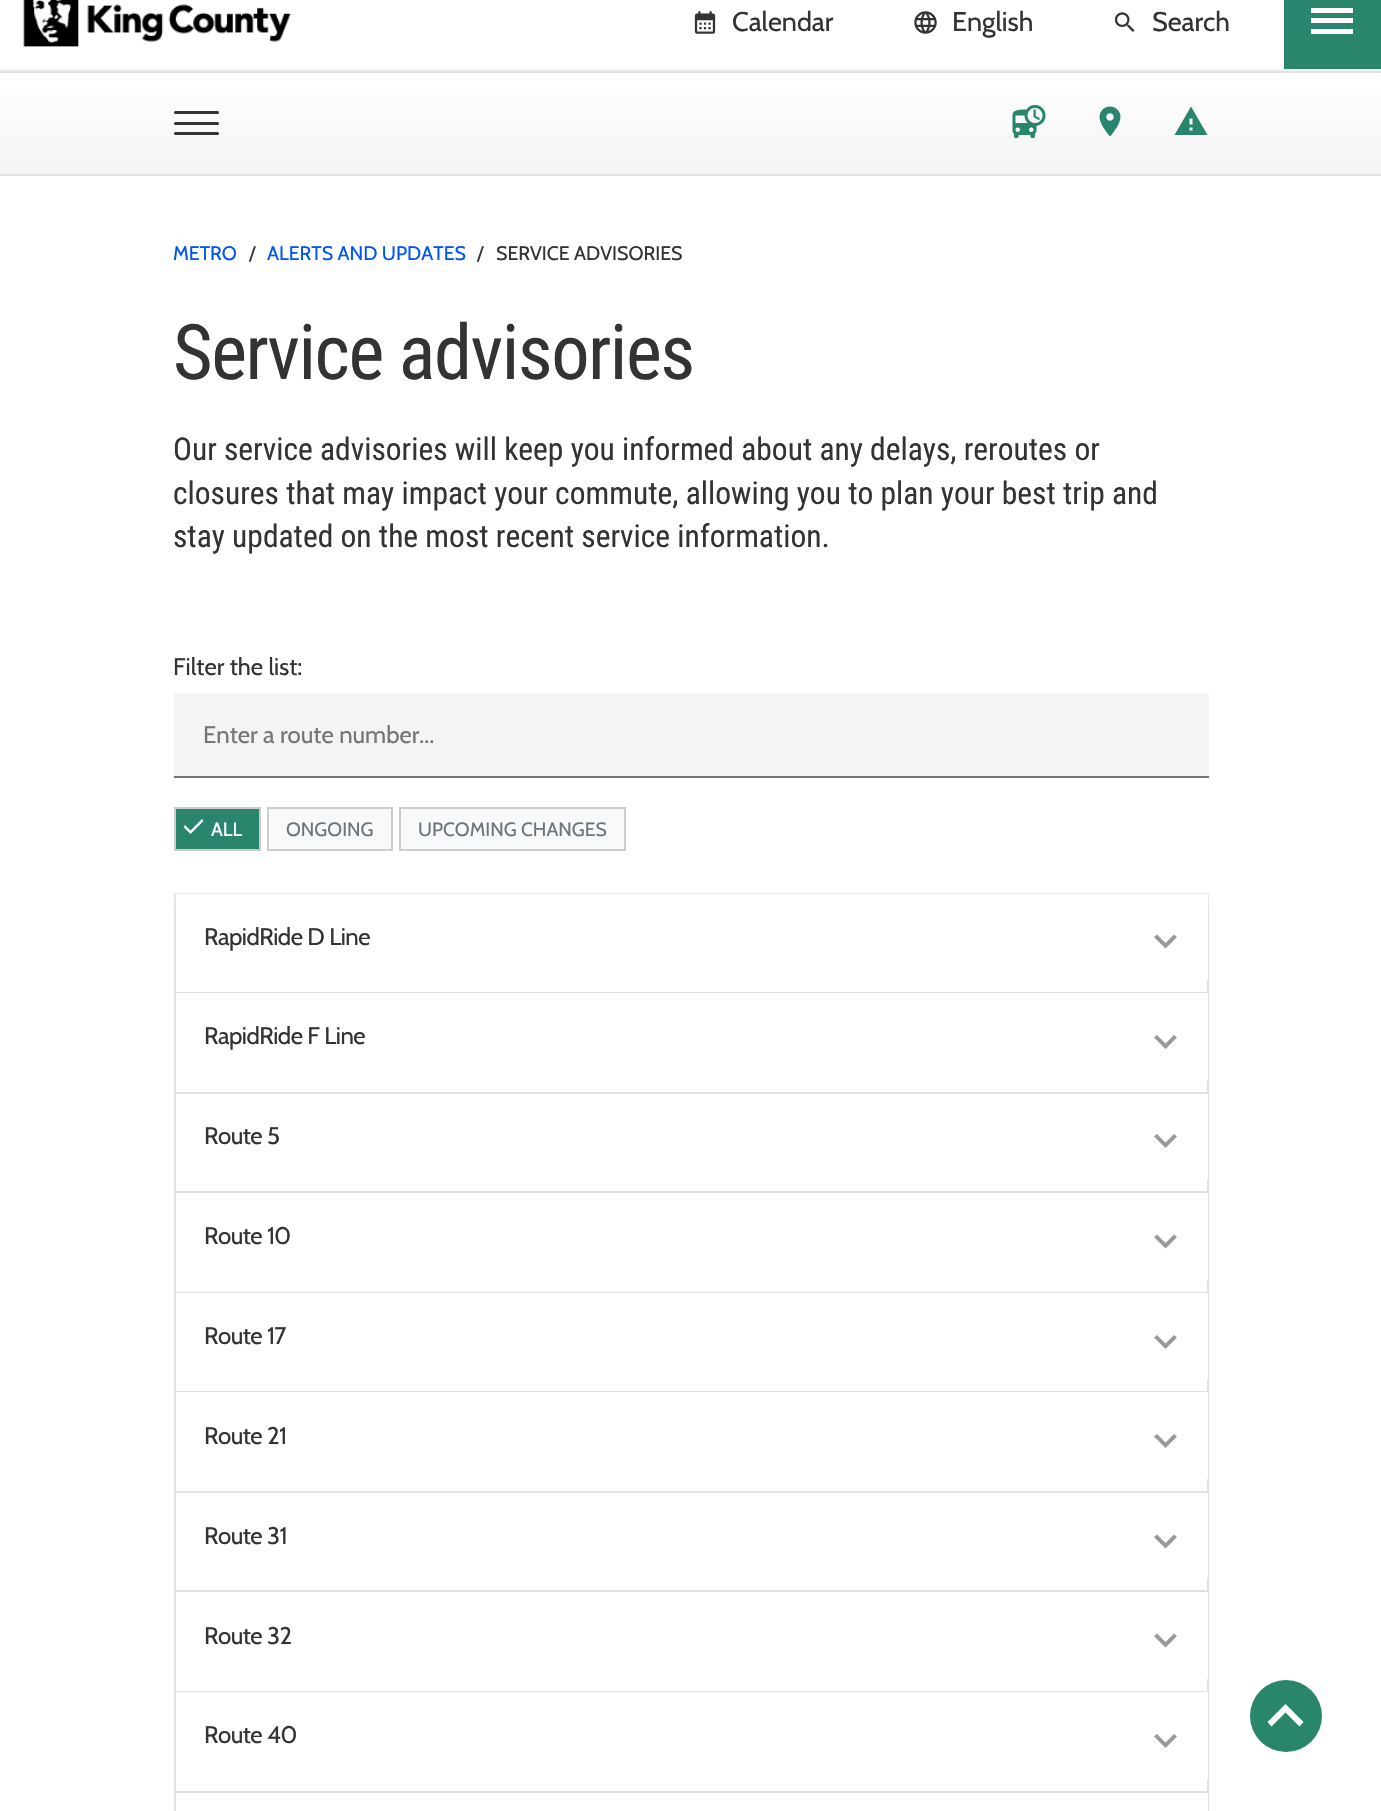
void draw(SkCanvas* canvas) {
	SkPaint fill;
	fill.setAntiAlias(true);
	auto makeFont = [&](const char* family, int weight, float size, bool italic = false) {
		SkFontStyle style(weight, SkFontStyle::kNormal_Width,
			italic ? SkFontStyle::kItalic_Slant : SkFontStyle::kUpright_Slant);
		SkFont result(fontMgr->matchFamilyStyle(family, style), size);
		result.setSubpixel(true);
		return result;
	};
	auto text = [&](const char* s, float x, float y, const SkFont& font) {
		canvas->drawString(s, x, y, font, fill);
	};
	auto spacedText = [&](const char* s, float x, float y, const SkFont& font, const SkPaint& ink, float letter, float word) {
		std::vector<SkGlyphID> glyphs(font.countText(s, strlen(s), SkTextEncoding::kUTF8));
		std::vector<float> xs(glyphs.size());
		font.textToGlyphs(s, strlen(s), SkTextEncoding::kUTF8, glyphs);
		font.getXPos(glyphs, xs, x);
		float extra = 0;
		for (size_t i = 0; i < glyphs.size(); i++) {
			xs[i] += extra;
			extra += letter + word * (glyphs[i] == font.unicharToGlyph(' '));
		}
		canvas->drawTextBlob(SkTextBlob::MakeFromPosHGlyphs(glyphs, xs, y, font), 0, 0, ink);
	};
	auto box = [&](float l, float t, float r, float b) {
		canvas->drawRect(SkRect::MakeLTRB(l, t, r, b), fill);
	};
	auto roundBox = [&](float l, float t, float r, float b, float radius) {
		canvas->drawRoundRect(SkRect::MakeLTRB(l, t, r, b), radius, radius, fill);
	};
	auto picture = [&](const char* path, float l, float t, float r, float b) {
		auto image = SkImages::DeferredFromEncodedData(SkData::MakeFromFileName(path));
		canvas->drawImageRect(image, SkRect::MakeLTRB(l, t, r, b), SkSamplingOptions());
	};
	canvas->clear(0xFFFFFFFF);
	fill.setColor(0xFFF4F4F4);
	box(0, 69, 1381, 71);
	picture("image0.png", 23, 0, 291, 47);
	picture("image1.png", 694, 11, 716, 34);
	picture("image2.png", 914, 11, 937, 34);
	picture("image3.png", 1114, 12, 1135, 32);
	fill.setColor(0xFF29856B);
	box(1284, 0, 1381, 69);
	fill.setColor(0xFFFFFFFF);
	box(1311, 8, 1353, 13);
	box(1311, 18, 1353, 23);
	box(1311, 29, 1353, 34);
	{
		const SkColor colors[] = {0xFFFFFFFF, 0xFFF4F4F4};
		const float stops[] = {0, 1};
		const SkPoint ends[] = {{691, 72}, {691, 174}};
		fill.setShader(SkGradientShader::MakeLinear(ends, colors, stops, 2, SkTileMode::kClamp));
		fill.setAlpha(255);
	}
	box(0, 95, 1381, 174);
	fill.setShader(nullptr);
	fill.setColor(0xFFE1E1E1);
	box(0, 71, 1381, 73);
	box(0, 174, 1381, 176);
	fill.setColor(0xFF333333);
	roundBox(174, 122, 219, 125, 1.5f);
	roundBox(174, 111, 219, 114, 1.5f);
	roundBox(174, 132, 219, 135, 1.5f);
	picture("image4.png", 1012, 105, 1046, 138);
	picture("image5.png", 1099, 106, 1121, 137);
	fill.setColor(0xFF29856B);
	canvas->drawPath(SkPathBuilder().moveTo(1192.5f, 124.5f).lineTo(1192.5f, 118.5f).lineTo(1189.5f, 118.5f).lineTo(1189.5f, 124.5f).close().moveTo(1192.5f, 130.5f).lineTo(1192.5f, 127.5f).lineTo(1189.5f, 127.5f).lineTo(1189.5f, 130.5f).close().moveTo(1174.5f, 135).lineTo(1191, 106.5f).lineTo(1207.5f, 135).close().detach(), fill);
	fill.setStyle(SkPaint::kStroke_Style);
	fill.setStrokeWidth(2);
	fill.setColor(0xFFDEE2E6);
	canvas->drawRect(SkRect::MakeLTRB(175, 894, 1208, 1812), fill);
	fill.setStyle(SkPaint::kFill_Style);
	fill.setColor(0xFFFFFFFF);
	box(176, 894, 1208, 980);
	fill.setColor(0xFF999999);
	canvas->drawPath(SkPathBuilder().moveTo(1165.5f, 948.5f).lineTo(1154, 937).lineTo(1157, 934.5f).lineTo(1165.5f, 943).lineTo(1174, 934.5f).lineTo(1177, 937).close().detach(), fill);
	canvas->save();
	canvas->clipPath(SkPathBuilder(SkPathFillType::kEvenOdd).moveTo(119, 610).lineTo(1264, 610).lineTo(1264, 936).lineTo(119, 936).close().moveTo(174, 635).lineTo(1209, 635).lineTo(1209, 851).lineTo(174, 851).close().detach(), true);
	fill.setColor(0xCCFFFFFF);
	fill.setMaskFilter(SkMaskFilter::MakeBlur(kNormal_SkBlurStyle, 15));
	canvas->drawRect(SkRect::MakeLTRB(165, 656, 1218, 890), fill);
	fill.setMaskFilter(nullptr);
	canvas->restore();
	fill.setColor(0xFFF4F4F4);
	box(174, 693, 1209, 776);
	fill.setColor(0xFF757575);
	box(174, 776, 1209, 778);
	fill.setColor(0xFF29856B);
	canvas->drawRect(SkRect::MakeLTRB(175, 808, 260, 850), fill);
	fill.setStyle(SkPaint::kStroke_Style);
	fill.setColor(0xFFCCCCCC);
	canvas->drawRect(SkRect::MakeLTRB(175, 808, 260, 850), fill);
	fill.setStyle(SkPaint::kFill_Style);
	fill.setColor(0xFFFFFFFF);
	canvas->drawPath(SkPathBuilder().moveTo(190.5f, 834).lineTo(183.5f, 827).lineTo(185, 825).lineTo(190.5f, 830.5f).lineTo(202, 819).lineTo(203.5f, 821).close().detach(), fill);
	fill.setColor(0xFFF8F9FA);
	canvas->drawRect(SkRect::MakeLTRB(268, 808, 392, 850), fill);
	fill.setStyle(SkPaint::kStroke_Style);
	fill.setColor(0xFFCCCCCC);
	canvas->drawRect(SkRect::MakeLTRB(268, 808, 392, 850), fill);
	fill.setStyle(SkPaint::kFill_Style);
	fill.setColor(0xFFF8F9FA);
	canvas->drawRect(SkRect::MakeLTRB(400, 808, 625, 850), fill);
	fill.setStyle(SkPaint::kStroke_Style);
	fill.setColor(0xFFCCCCCC);
	canvas->drawRect(SkRect::MakeLTRB(400, 808, 625, 850), fill);
	fill.setStyle(SkPaint::kFill_Style);
	fill.setColor(0xFFDEE2E6);
	box(176, 992, 1208, 993);
	fill.setColor(0xFFFFFFFF);
	box(1207, 993, 1208, 1080);
	fill.setColor(0xFF999999);
	canvas->drawPath(SkPathBuilder().moveTo(1165.5f, 1049).lineTo(1154, 1037.5f).lineTo(1157, 1035).lineTo(1165.5f, 1043.5f).lineTo(1174, 1035).lineTo(1177, 1037.5f).close().detach(), fill);
	fill.setColor(0xFFDEE2E6);
	box(176, 1092, 1208, 1094);
	fill.setColor(0xFFFFFFFF);
	box(1207, 1094, 1208, 1179);
	fill.setColor(0xFF999999);
	canvas->drawPath(SkPathBuilder().moveTo(1165.5f, 1148).lineTo(1154, 1136.5f).lineTo(1157, 1134).lineTo(1165.5f, 1142.5f).lineTo(1174, 1134).lineTo(1177, 1136.5f).close().detach(), fill);
	fill.setColor(0xFFDEE2E6);
	box(176, 1191, 1208, 1193);
	fill.setColor(0xFFFFFFFF);
	box(1207, 1193, 1208, 1280);
	fill.setColor(0xFF999999);
	canvas->drawPath(SkPathBuilder().moveTo(1165.5f, 1248.5f).lineTo(1154, 1237).lineTo(1157, 1234.5f).lineTo(1165.5f, 1243).lineTo(1174, 1234.5f).lineTo(1177, 1237).close().detach(), fill);
	fill.setColor(0xFFDEE2E6);
	box(176, 1292, 1208, 1293);
	fill.setColor(0xFFFFFFFF);
	box(1207, 1293, 1208, 1379);
	fill.setColor(0xFF999999);
	canvas->drawPath(SkPathBuilder().moveTo(1165.5f, 1349).lineTo(1154, 1337.5f).lineTo(1157, 1335).lineTo(1165.5f, 1343.5f).lineTo(1174, 1335).lineTo(1177, 1337.5f).close().detach(), fill);
	fill.setColor(0xFFDEE2E6);
	box(176, 1391, 1208, 1392);
	fill.setColor(0xFFFFFFFF);
	box(1207, 1392, 1208, 1479);
	fill.setColor(0xFF999999);
	canvas->drawPath(SkPathBuilder().moveTo(1165.5f, 1448).lineTo(1154, 1436.5f).lineTo(1157, 1434).lineTo(1165.5f, 1442.5f).lineTo(1174, 1434).lineTo(1177, 1436.5f).close().detach(), fill);
	fill.setColor(0xFFDEE2E6);
	box(176, 1491, 1208, 1493);
	fill.setColor(0xFFFFFFFF);
	box(1207, 1493, 1208, 1578);
	fill.setColor(0xFF999999);
	canvas->drawPath(SkPathBuilder().moveTo(1165.5f, 1548.5f).lineTo(1154, 1537).lineTo(1157, 1534.5f).lineTo(1165.5f, 1543).lineTo(1174, 1534.5f).lineTo(1177, 1537).close().detach(), fill);
	fill.setColor(0xFFDEE2E6);
	box(176, 1590, 1208, 1592);
	fill.setColor(0xFFFFFFFF);
	box(1207, 1592, 1208, 1679);
	fill.setColor(0xFF999999);
	canvas->drawPath(SkPathBuilder().moveTo(1165.5f, 1647.5f).lineTo(1154, 1636).lineTo(1157, 1633.5f).lineTo(1165.5f, 1642).lineTo(1174, 1633.5f).lineTo(1177, 1636).close().detach(), fill);
	fill.setColor(0xFFDEE2E6);
	box(176, 1691, 1208, 1692);
	fill.setColor(0xFFFFFFFF);
	box(1207, 1692, 1208, 1779);
	fill.setColor(0xFF999999);
	canvas->drawPath(SkPathBuilder().moveTo(1165.5f, 1748).lineTo(1154, 1736.5f).lineTo(1157, 1734).lineTo(1165.5f, 1742.5f).lineTo(1174, 1734).lineTo(1177, 1736.5f).close().detach(), fill);
	fill.setColor(0xFFDEE2E6);
	box(176, 1791, 1208, 1793);
	fill.setColor(0xFFFFFFFF);
	box(1207, 1793, 1208, 1811);
	fill.setColor(0xFF29856B);
	canvas->drawCircle(1286, 1716, 36, fill);
	fill.setColor(0xFFFFFFFF);
	canvas->drawPath(SkPathBuilder().moveTo(1285.5f, 1704).lineTo(1303.5f, 1722).lineTo(1299.5f, 1726.5f).lineTo(1285.5f, 1712.5f).lineTo(1271.5f, 1726.5f).lineTo(1267.5f, 1722).close().detach(), fill);
	auto font1 = makeFont("Cabin", 400, 27);
	fill.setColor(0xFF333333);
	text("Calendar", 732, 31, font1);
	text("English", 952, 31, font1);
	text("Search", 1152, 31, font1);
	auto font2 = makeFont("Cabin", 400, 19.5f);
	fill.setColor(0xFF0056F5);
	text("METRO", 173, 260, font2);
	fill.setColor(0xFF333333);
	text("/", 249, 260, font2);
	fill.setColor(0xFF0056F5);
	text("ALERTS AND UPDATES", 267, 260, font2);
	fill.setColor(0xFF333333);
	text("/", 477, 260, font2);
	text("SERVICE ADVISORIES", 496, 260, font2);
	auto font3 = makeFont("Roboto Condensed", 400, 76.5f);
	spacedText("Service advisories", 173, 379, font3, fill, -1.5f, 0);
	auto font4 = makeFont("Roboto Condensed", 400, 31.5f);
	text("Our service advisories will keep you informed about any delays, reroutes or", 173, 460, font4);
	text("closures that may impact your commute, allowing you to plan your best trip and", 173, 504, font4);
	text("stay updated on the most recent service information.", 173, 547, font4);
	auto font5 = makeFont("Cabin", 400, 24);
	text("Filter the list:", 173, 675, font5);
	fill.setColor(0xFF757575);
	text("Enter a route number...", 203, 743, font5);
	auto font6 = makeFont("Cabin", 400, 19.25f);
	fill.setColor(0xFFFFFFFF);
	text("ALL", 211, 836, font6);
	fill.setColor(0xFF6C757D);
	text("ONGOING", 286, 836, font6);
	text("UPCOMING CHANGES", 418, 836, font6);
	fill.setColor(0xFF333333);
	spacedText("RapidRide D Line", 204, 945, font5, fill, -0.5f, 0);
	spacedText("RapidRide F Line", 204, 1044, font5, fill, -0.5f, 0);
	spacedText("Route 5", 204, 1144, font5, fill, -0.5f, 0);
	spacedText("Route 10", 204, 1244, font5, fill, -0.5f, 0);
	spacedText("Route 17", 204, 1344, font5, fill, -0.5f, 0);
	spacedText("Route 21", 204, 1444, font5, fill, -0.5f, 0);
	spacedText("Route 31", 204, 1544, font5, fill, -0.5f, 0);
	spacedText("Route 32", 204, 1644, font5, fill, -0.5f, 0);
	spacedText("Route 40", 204, 1743, font5, fill, -0.5f, 0);
}
